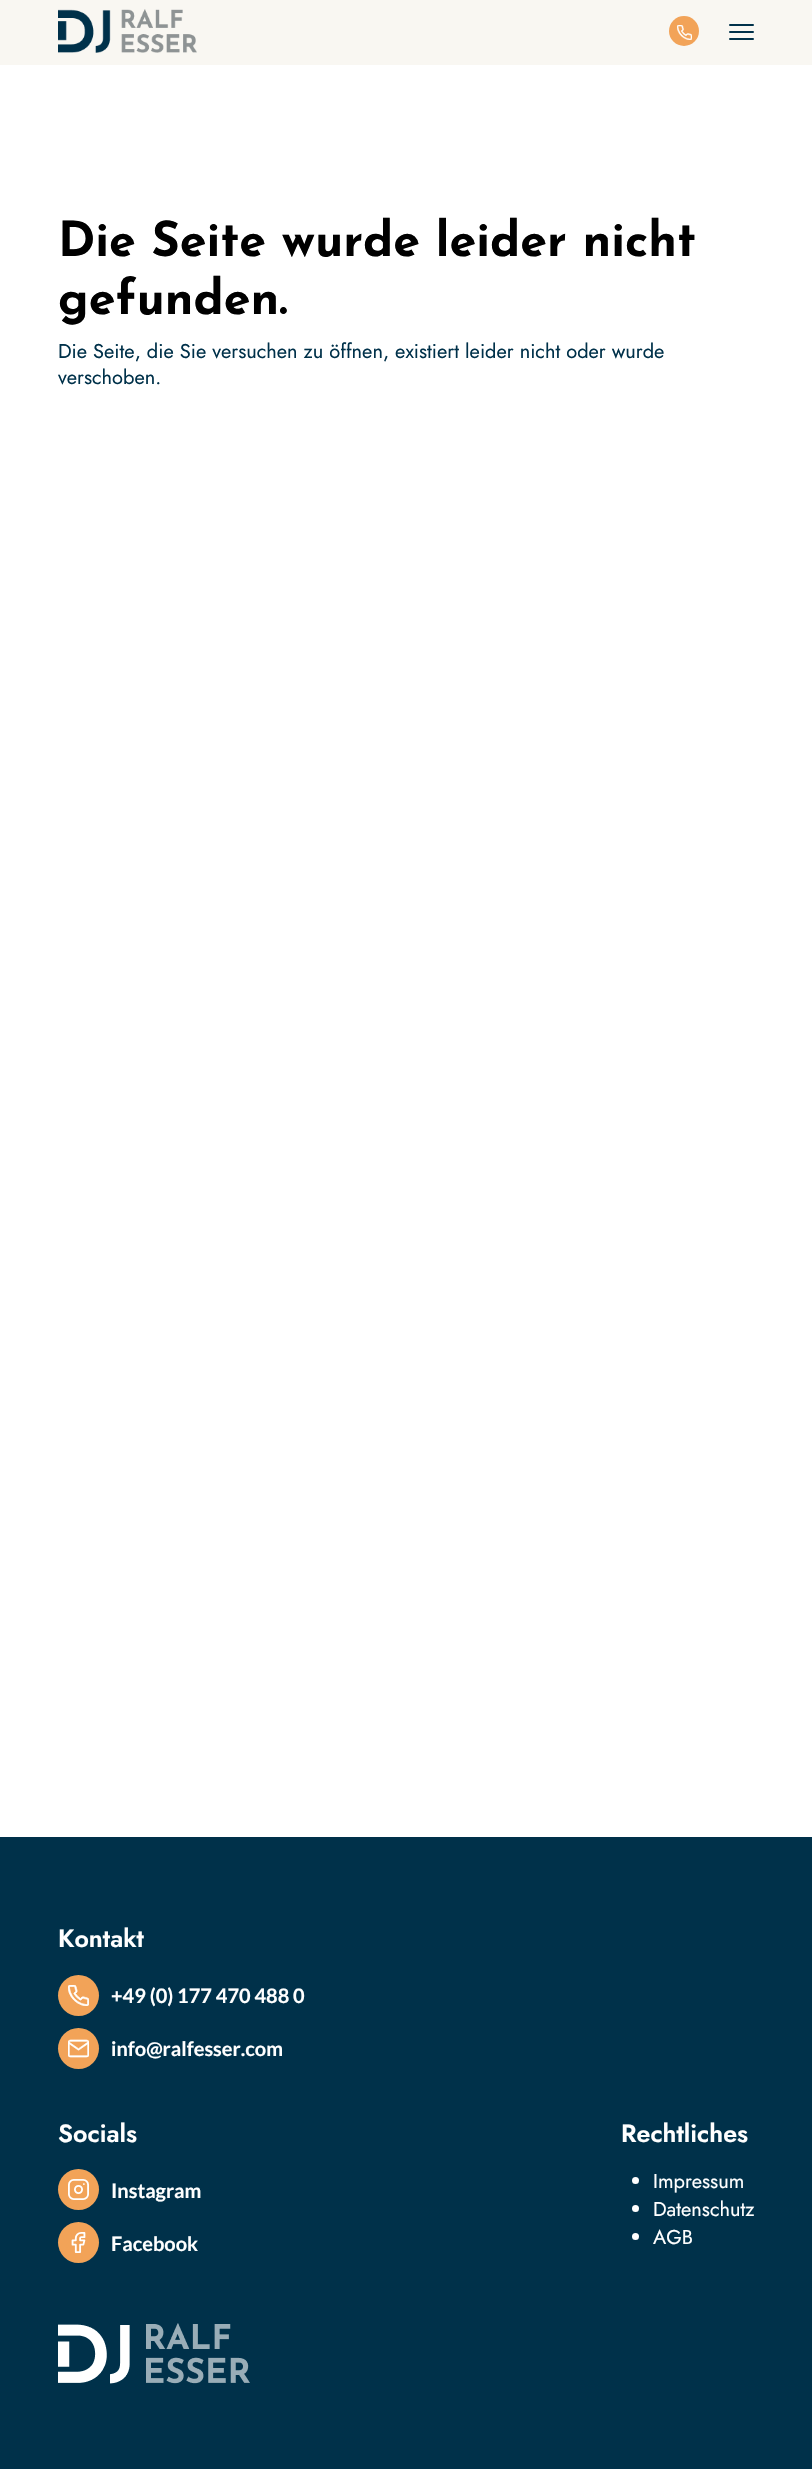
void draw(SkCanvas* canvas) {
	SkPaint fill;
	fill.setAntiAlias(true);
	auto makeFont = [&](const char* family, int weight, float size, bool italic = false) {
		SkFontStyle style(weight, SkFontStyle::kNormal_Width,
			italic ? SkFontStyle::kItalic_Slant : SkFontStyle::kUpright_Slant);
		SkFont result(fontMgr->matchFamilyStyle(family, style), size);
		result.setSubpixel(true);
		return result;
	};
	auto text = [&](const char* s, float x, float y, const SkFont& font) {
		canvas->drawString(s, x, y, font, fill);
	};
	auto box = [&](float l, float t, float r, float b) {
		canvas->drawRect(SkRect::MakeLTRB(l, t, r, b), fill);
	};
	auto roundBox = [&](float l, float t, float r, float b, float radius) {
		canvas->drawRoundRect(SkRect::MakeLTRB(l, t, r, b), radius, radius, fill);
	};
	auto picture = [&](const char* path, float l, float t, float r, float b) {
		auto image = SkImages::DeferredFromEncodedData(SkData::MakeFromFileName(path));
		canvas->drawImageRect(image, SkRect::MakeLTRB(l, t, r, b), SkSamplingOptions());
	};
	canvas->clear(0xFFFFFFFF);
	fill.setColor(0xFFF9F7F2);
	box(0, 0, 812, 65);
	picture("image0.png", 58, 9, 197, 53);
	fill.setColor(0xFFF2A358);
	canvas->drawCircle(684, 31, 15, fill);
	picture("image1.png", 677, 25, 692, 40);
	fill.setColor(0xFF00314A);
	roundBox(729, 38, 754, 40, 1);
	roundBox(729, 24, 754, 26, 1);
	roundBox(729, 31, 754, 33, 1);
	box(0, 1837, 812, 2469);
	fill.setColor(0xFFF2A358);
	canvas->drawCircle(78.5f, 1995.5f, 20.5f, fill);
	picture("image2.png", 68, 1985, 89, 2006);
	canvas->drawCircle(78.5f, 2048.5f, 20.5f, fill);
	picture("image3.png", 68, 2039, 89, 2058);
	canvas->drawCircle(78.5f, 2189.5f, 20.5f, fill);
	picture("image4.png", 68, 2179, 89, 2200);
	canvas->drawCircle(78.5f, 2242.5f, 20.5f, fill);
	picture("image5.png", 71, 2232, 86, 2253);
	fill.setColor(0xFFFFFFFF);
	canvas->drawCircle(635.5f, 2180.5f, 3.5f, fill);
	canvas->drawCircle(635.5f, 2208.5f, 3.5f, fill);
	canvas->drawCircle(635.5f, 2236.5f, 3.5f, fill);
	picture("image6.png", 58, 2323, 250, 2384);
	auto font1 = makeFont("Josefin Sans", 100, 48.4f);
	fill.setColor(0xFF000000);
	text("Die Seite wurde leider nicht", 58, 256, font1);
	text("gefunden.", 58, 314, font1);
	auto font2 = makeFont("Jost", 400, 20);
	fill.setColor(0xFF00314A);
	text("Die Seite, die Sie versuchen zu öffnen, existiert leider nicht oder wurde", 58, 358, font2);
	text("verschoben.", 58, 384, font2);
	auto font3 = makeFont("Jost", 600, 25);
	fill.setColor(0xFFFFFFFF);
	text("Kontakt", 58, 1947, font3);
	auto font4 = makeFont("Lato", 700, 20);
	text("+49 (0) 177 470 488 0", 111, 2003, font4);
	text("info@ralfesser.com", 111, 2056, font4);
	text("Socials", 58, 2142, font3);
	text("Instagram", 111, 2198, font4);
	text("Facebook", 111, 2251, font4);
	text("Rechtliches", 621, 2142, font3);
	text("Impressum", 653, 2188, font2);
	text("Datenschutz", 653, 2216, font2);
	text("AGB", 653, 2244, font2);
}
